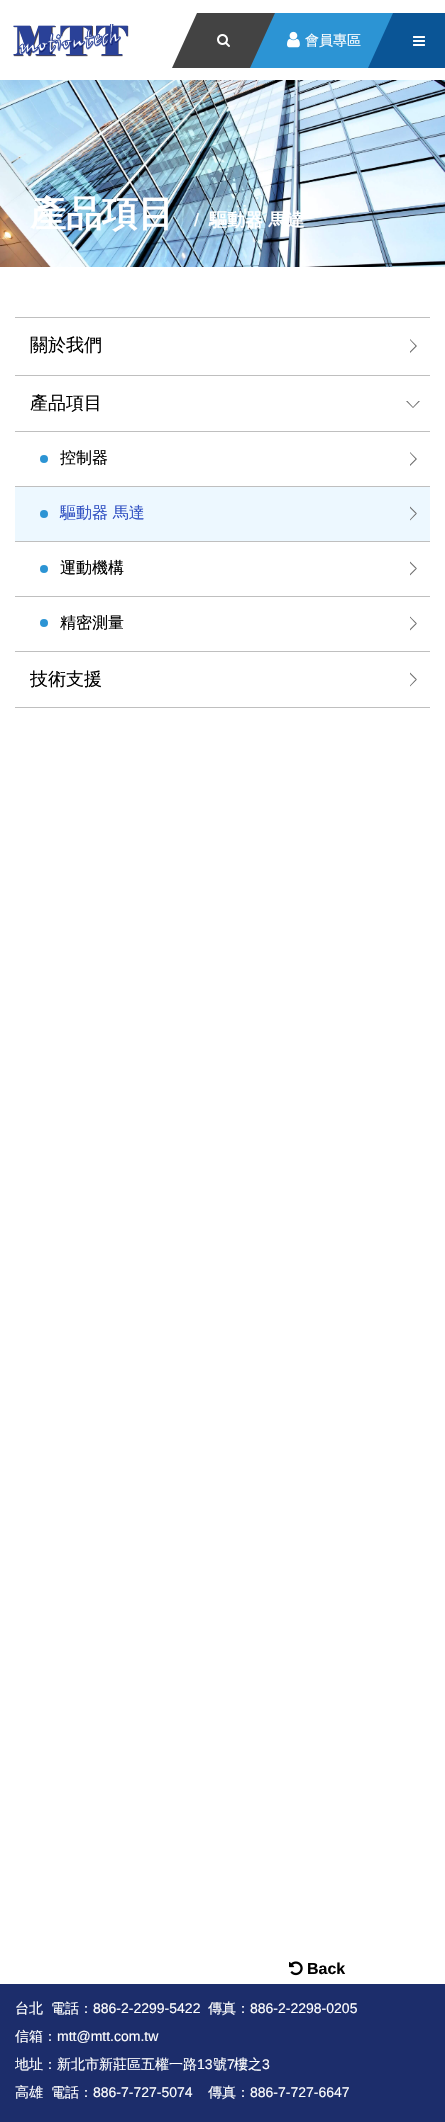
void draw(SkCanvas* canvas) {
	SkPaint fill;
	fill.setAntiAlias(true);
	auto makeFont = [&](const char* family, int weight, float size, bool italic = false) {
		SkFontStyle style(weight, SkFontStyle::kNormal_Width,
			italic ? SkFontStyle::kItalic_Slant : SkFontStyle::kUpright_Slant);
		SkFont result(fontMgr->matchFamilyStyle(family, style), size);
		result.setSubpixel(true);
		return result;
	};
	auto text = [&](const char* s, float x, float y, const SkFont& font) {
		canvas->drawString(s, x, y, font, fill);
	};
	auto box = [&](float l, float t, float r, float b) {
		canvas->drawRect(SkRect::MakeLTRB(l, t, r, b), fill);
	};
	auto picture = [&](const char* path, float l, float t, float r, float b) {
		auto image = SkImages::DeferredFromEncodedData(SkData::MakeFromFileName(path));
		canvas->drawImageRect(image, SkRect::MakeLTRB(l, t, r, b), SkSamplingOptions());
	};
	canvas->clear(0xFFFFFFFF);
	picture("image0.png", 13, 24, 129, 57);
	fill.setColor(0xFF434343);
	box(197, 13, 275, 68);
	canvas->drawPath(SkPathBuilder().moveTo(197, 13).lineTo(197, 68).lineTo(172, 68).close().detach(), fill);
	picture("image1.png", 217, 34, 230, 47);
	fill.setColor(0xFF2C94D4);
	box(275, 13, 393, 68);
	picture("image2.png", 287, 31, 300, 48);
	canvas->drawPath(SkPathBuilder().moveTo(275, 13).lineTo(275, 68).lineTo(250, 68).close().detach(), fill);
	fill.setColor(0xFF0A5596);
	box(393, 13, 445, 68);
	canvas->drawPath(SkPathBuilder().moveTo(393, 13).lineTo(393, 68).lineTo(368, 68).close().detach(), fill);
	picture("image3.png", 413, 36, 425, 46);
	picture("image4.png", 0, 80, 445, 267);
	fill.setColor(0xFFBFBFBF);
	box(15, 317, 430, 318);
	fill.setColor(0xFF6C6C6C);
	canvas->drawPath(SkPathBuilder().moveTo(410, 339).lineTo(417, 346).lineTo(415.5f, 346).lineTo(410, 340).close().moveTo(417, 346).lineTo(410, 353).lineTo(410, 351.5f).lineTo(415.5f, 346).close().detach(), fill);
	fill.setColor(0xFFBFBFBF);
	box(15, 375, 430, 376);
	box(15, 431, 430, 432);
	fill.setColor(0xFF6C6C6C);
	canvas->drawPath(SkPathBuilder().moveTo(420, 401).lineTo(413, 408).lineTo(413, 407).lineTo(418.5f, 401).close().moveTo(413, 408).lineTo(406, 401).lineTo(407.5f, 401).lineTo(413, 407).close().detach(), fill);
	fill.setColor(0xFF2C94D4);
	canvas->drawCircle(44, 459, 4, fill);
	fill.setColor(0xFF6C6C6C);
	canvas->drawPath(SkPathBuilder().moveTo(410, 452).lineTo(417, 459).lineTo(415.5f, 459).lineTo(410, 453).close().moveTo(417, 459).lineTo(410, 466).lineTo(410, 464.5f).lineTo(415.5f, 459).close().detach(), fill);
	fill.setColor(0xFFEDF8FF);
	box(15, 487, 430, 541);
	fill.setColor(0xFFBFBFBF);
	box(15, 486, 430, 487);
	fill.setColor(0xFF2C94D4);
	canvas->drawCircle(44, 514, 4, fill);
	fill.setColor(0xFF6C6C6C);
	canvas->drawPath(SkPathBuilder().moveTo(410, 506.5f).lineTo(417, 513.5f).lineTo(415.5f, 513.5f).lineTo(410, 508).close().detach(), fill);
	canvas->drawPath(SkPathBuilder().moveTo(417, 513.5f).lineTo(410, 520.5f).lineTo(410, 519.5f).lineTo(415.5f, 513.5f).close().detach(), fill);
	fill.setColor(0xFFBFBFBF);
	box(15, 541, 430, 542);
	fill.setColor(0xFF2C94D4);
	canvas->drawCircle(44, 569, 4, fill);
	fill.setColor(0xFF6C6C6C);
	canvas->drawPath(SkPathBuilder().moveTo(410, 561.5f).lineTo(417, 568.5f).lineTo(415.5f, 568.5f).lineTo(410, 563).close().detach(), fill);
	canvas->drawPath(SkPathBuilder().moveTo(417, 568.5f).lineTo(410, 575.5f).lineTo(410, 574).lineTo(415.5f, 568.5f).close().detach(), fill);
	fill.setColor(0xFFBFBFBF);
	box(15, 596, 430, 597);
	fill.setColor(0xFF2C94D4);
	canvas->drawCircle(44, 623, 4, fill);
	fill.setColor(0xFF6C6C6C);
	canvas->drawPath(SkPathBuilder().moveTo(410, 616.5f).lineTo(417, 623.5f).lineTo(415.5f, 623.5f).lineTo(410, 617.5f).close().detach(), fill);
	canvas->drawPath(SkPathBuilder().moveTo(417, 623.5f).lineTo(410, 630.5f).lineTo(410, 629).lineTo(415.5f, 623.5f).close().detach(), fill);
	fill.setColor(0xFFBFBFBF);
	box(15, 651, 430, 652);
	box(15, 707, 430, 708);
	fill.setColor(0xFF6C6C6C);
	canvas->drawPath(SkPathBuilder().moveTo(410, 672.5f).lineTo(417, 679.5f).lineTo(415.5f, 679.5f).lineTo(410, 674).close().detach(), fill);
	canvas->drawPath(SkPathBuilder().moveTo(417, 679.5f).lineTo(410, 686.5f).lineTo(410, 685.5f).lineTo(415.5f, 679.5f).close().detach(), fill);
	fill.setColor(0xFF1C2D6B);
	box(0, 1984, 445, 2122);
	picture("image5.png", 289, 1961, 303, 1976);
	auto font1 = makeFont("WenQuanYi Zen Hei", 500, 14);
	fill.setColor(0xFFFFFFFF);
	text("會員專區", 305, 45, font1);
	auto font2 = makeFont("WenQuanYi Zen Hei", 700, 36);
	text("產品項目", 30, 226, font2);
	auto font3 = makeFont("Liberation Sans", 400, 18);
	text("/", 194, 226, font3);
	auto font4 = makeFont("WenQuanYi Zen Hei", 700, 18);
	text("驅動器 馬達", 209, 226, font4);
	auto font5 = makeFont("WenQuanYi Zen Hei", 500, 18);
	fill.setColor(0xFF000000);
	text("關於我們", 30, 351, font5);
	text("產品項目", 30, 409, font5);
	auto font6 = makeFont("WenQuanYi Zen Hei", 500, 16);
	text("控制器", 60, 463, font6);
	fill.setColor(0xFF3252C3);
	text("驅動器 馬達", 60, 518, font6);
	fill.setColor(0xFF000000);
	text("運動機構", 60, 573, font6);
	text("精密測量", 60, 628, font6);
	text("技術支援", 30, 685, font5);
	auto font7 = makeFont("Liberation Sans", 700, 16);
	text("Back", 307, 1974, font7);
	fill.setColor(0xFFFFFFFF);
	text("台北", 15, 2013, font1);
	text("電話：", 51, 2013, font1);
	auto font8 = makeFont("Liberation Sans", 400, 14);
	text("886-2-2299-5422", 93, 2013, font8);
	text("傳真：", 208, 2013, font1);
	text("886-2-2298-0205", 250, 2013, font8);
	text("信箱：", 15, 2041, font1);
	text("mtt@mtt.com.tw", 57, 2041, font8);
	text("地址：新北市新莊區五權一路", 15, 2069, font1);
	text("13", 197, 2069, font8);
	text("號", 213, 2069, font1);
	text("7", 227, 2069, font8);
	text("樓之", 234, 2069, font1);
	text("3", 262, 2069, font8);
	text("高雄", 15, 2097, font1);
	text("電話：", 51, 2097, font1);
	text("886-7-727-5074", 93, 2097, font8);
	text("傳真：", 208, 2097, font1);
	text("886-7-727-6647", 250, 2097, font8);
}
